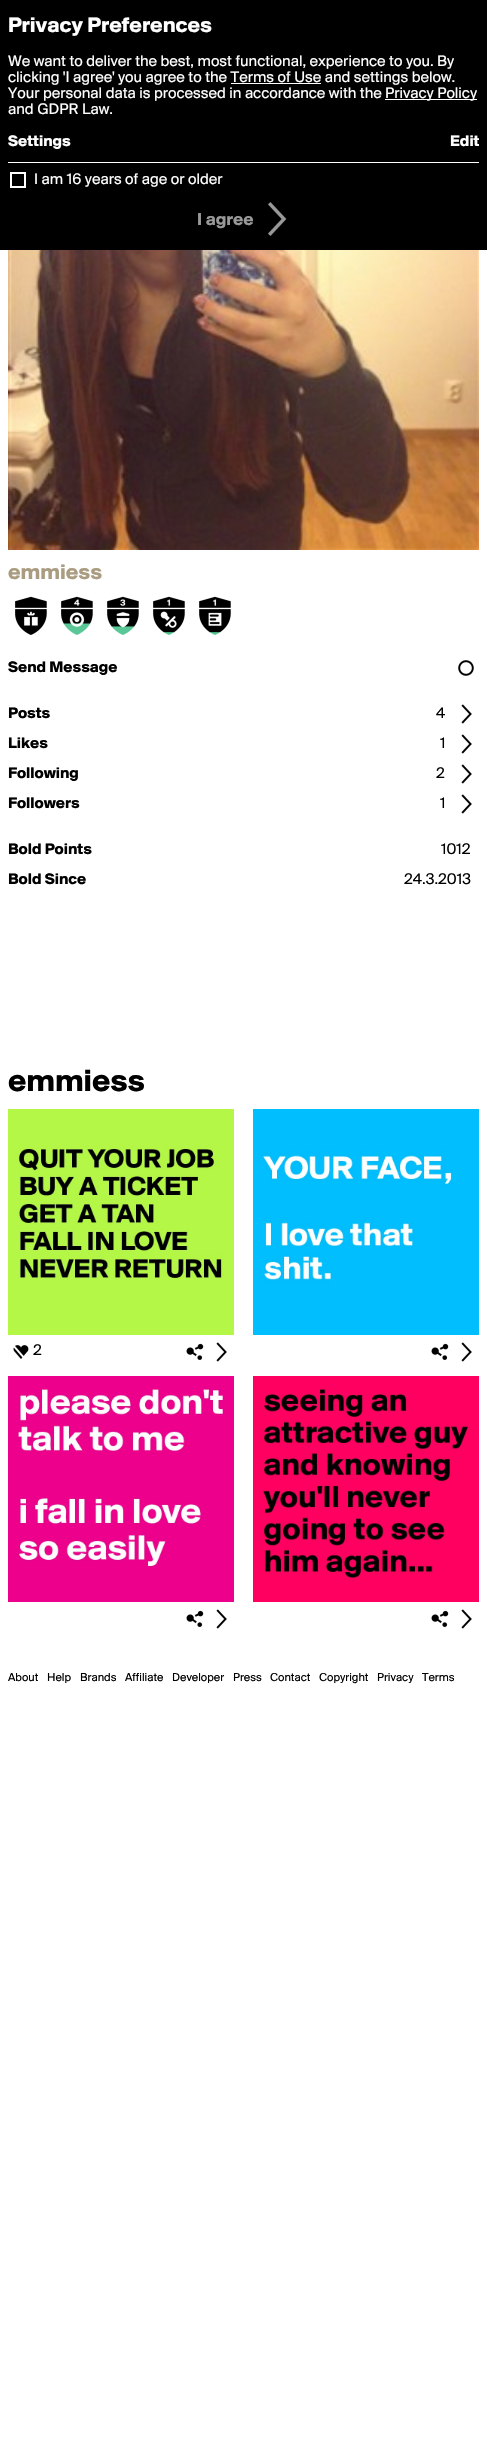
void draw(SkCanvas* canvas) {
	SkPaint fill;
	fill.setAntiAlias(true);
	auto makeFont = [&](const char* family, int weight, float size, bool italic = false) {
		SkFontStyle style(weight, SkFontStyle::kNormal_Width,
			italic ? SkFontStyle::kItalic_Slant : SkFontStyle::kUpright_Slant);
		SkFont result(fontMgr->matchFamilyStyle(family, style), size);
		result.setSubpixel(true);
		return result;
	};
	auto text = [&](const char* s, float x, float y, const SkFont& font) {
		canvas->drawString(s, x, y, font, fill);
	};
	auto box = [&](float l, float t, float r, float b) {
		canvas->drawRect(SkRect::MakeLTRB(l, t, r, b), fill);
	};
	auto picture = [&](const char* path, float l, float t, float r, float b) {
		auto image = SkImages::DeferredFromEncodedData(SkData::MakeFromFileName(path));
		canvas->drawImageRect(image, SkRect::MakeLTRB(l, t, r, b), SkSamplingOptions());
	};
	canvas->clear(0xFFFFFFFF);
	fill.setColor(0xFF000000);
	box(0, 0, 487, 250);
	fill.setColor(0xFFFFFFFF);
	box(231, 83, 321, 84);
	box(385, 99, 477, 100);
	box(8, 162, 479, 163);
	fill.setStyle(SkPaint::kStroke_Style);
	fill.setStrokeWidth(2);
	canvas->drawRect(SkRect::MakeLTRB(11, 173, 25, 187), fill);
	picture("image0.png", 268, 202, 287, 236);
	picture("image1.png", 8, 250, 479, 550);
	picture("image2.png", 15, 596, 47, 635);
	picture("image3.png", 24, 611, 38, 626);
	picture("image4.png", 61, 596, 93, 635);
	picture("image5.png", 69, 612, 85, 627);
	picture("image6.png", 107, 596, 139, 635);
	picture("image7.png", 116, 612, 130, 628);
	picture("image8.png", 153, 596, 185, 635);
	picture("image9.png", 160, 611, 177, 628);
	picture("image8.png", 199, 596, 231, 635);
	picture("image10.png", 208, 612, 222, 626);
	picture("image11.png", 458, 660, 474, 676);
	picture("image12.png", 461, 704, 472, 724);
	picture("image12.png", 461, 734, 472, 754);
	picture("image12.png", 461, 764, 472, 784);
	picture("image12.png", 461, 794, 472, 814);
	picture("image13.png", 8, 1109, 234, 1335);
	picture("image14.png", 13, 1345, 29, 1359);
	picture("image15.png", 186, 1343, 204, 1361);
	picture("image12.png", 216, 1342, 227, 1362);
	picture("image16.png", 253, 1109, 479, 1335);
	picture("image15.png", 431, 1343, 449, 1361);
	picture("image12.png", 461, 1342, 472, 1362);
	picture("image17.png", 8, 1376, 234, 1602);
	picture("image15.png", 186, 1610, 204, 1628);
	picture("image12.png", 216, 1609, 227, 1629);
	picture("image18.png", 253, 1376, 479, 1602);
	picture("image15.png", 431, 1610, 449, 1628);
	picture("image12.png", 461, 1609, 472, 1629);
	auto font1 = makeFont("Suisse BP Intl", 700, 22);
	fill.setStyle(SkPaint::kFill_Style);
	text("Privacy Preferences", 8, 32, font1);
	auto font2 = makeFont("Suisse BP Intl", 400, 16);
	text("We want to deliver the best, most functional, experience to you. By", 8, 66, font2);
	text("clicking 'I agree' you agree to the Terms of Use and settings below.", 8, 82, font2);
	text("Your personal data is processed in accordance with the", 8, 98, font2);
	text("Privacy Policy", 385, 98, font2);
	text("and GDPR Law.", 8, 114, font2);
	auto font3 = makeFont("Suisse BP Intl", 700, 16);
	text("Settings", 8, 146, font3);
	text("Edit", 450, 146, font3);
	text("I am 16 years of age or older", 34, 184, font2);
	auto font4 = makeFont("Suisse BP Intl", 700, 18);
	fill.setColor(0xFF999999);
	text("I agree", 197, 225, font4);
	fill.setColor(0xFFAA9C81);
	text("emmiess", 8, 579, font1);
	fill.setColor(0xFF000000);
	text("Send Message", 8, 672, font3);
	text("Posts", 8, 718, font3);
	text("4", 436, 718, font2);
	text("Likes", 8, 748, font3);
	text("1", 440, 748, font2);
	text("Following", 8, 778, font3);
	text("2", 436, 778, font2);
	text("Followers", 8, 808, font3);
	text("1", 440, 808, font2);
	text("Bold Points", 8, 854, font3);
	text("1012", 441, 854, font2);
	text("Bold Since", 8, 884, font3);
	text("24.3.2013", 404, 884, font2);
	auto font5 = makeFont("Suisse BP Intl", 700, 32);
	text("emmiess", 8, 1091, font5);
	text("2", 33, 1355, font2);
	auto font6 = makeFont("Suisse BP Intl", 400, 12);
	text("About", 8, 1681, font6);
	text("Help", 47, 1681, font6);
	text("Brands", 80, 1681, font6);
	text("Affiliate", 125, 1681, font6);
	text("Developer", 172, 1681, font6);
	text("Press", 233, 1681, font6);
	text("Contact", 270, 1681, font6);
	text("Copyright", 319, 1681, font6);
	text("Privacy", 377, 1681, font6);
	text("Terms", 422, 1681, font6);
}
